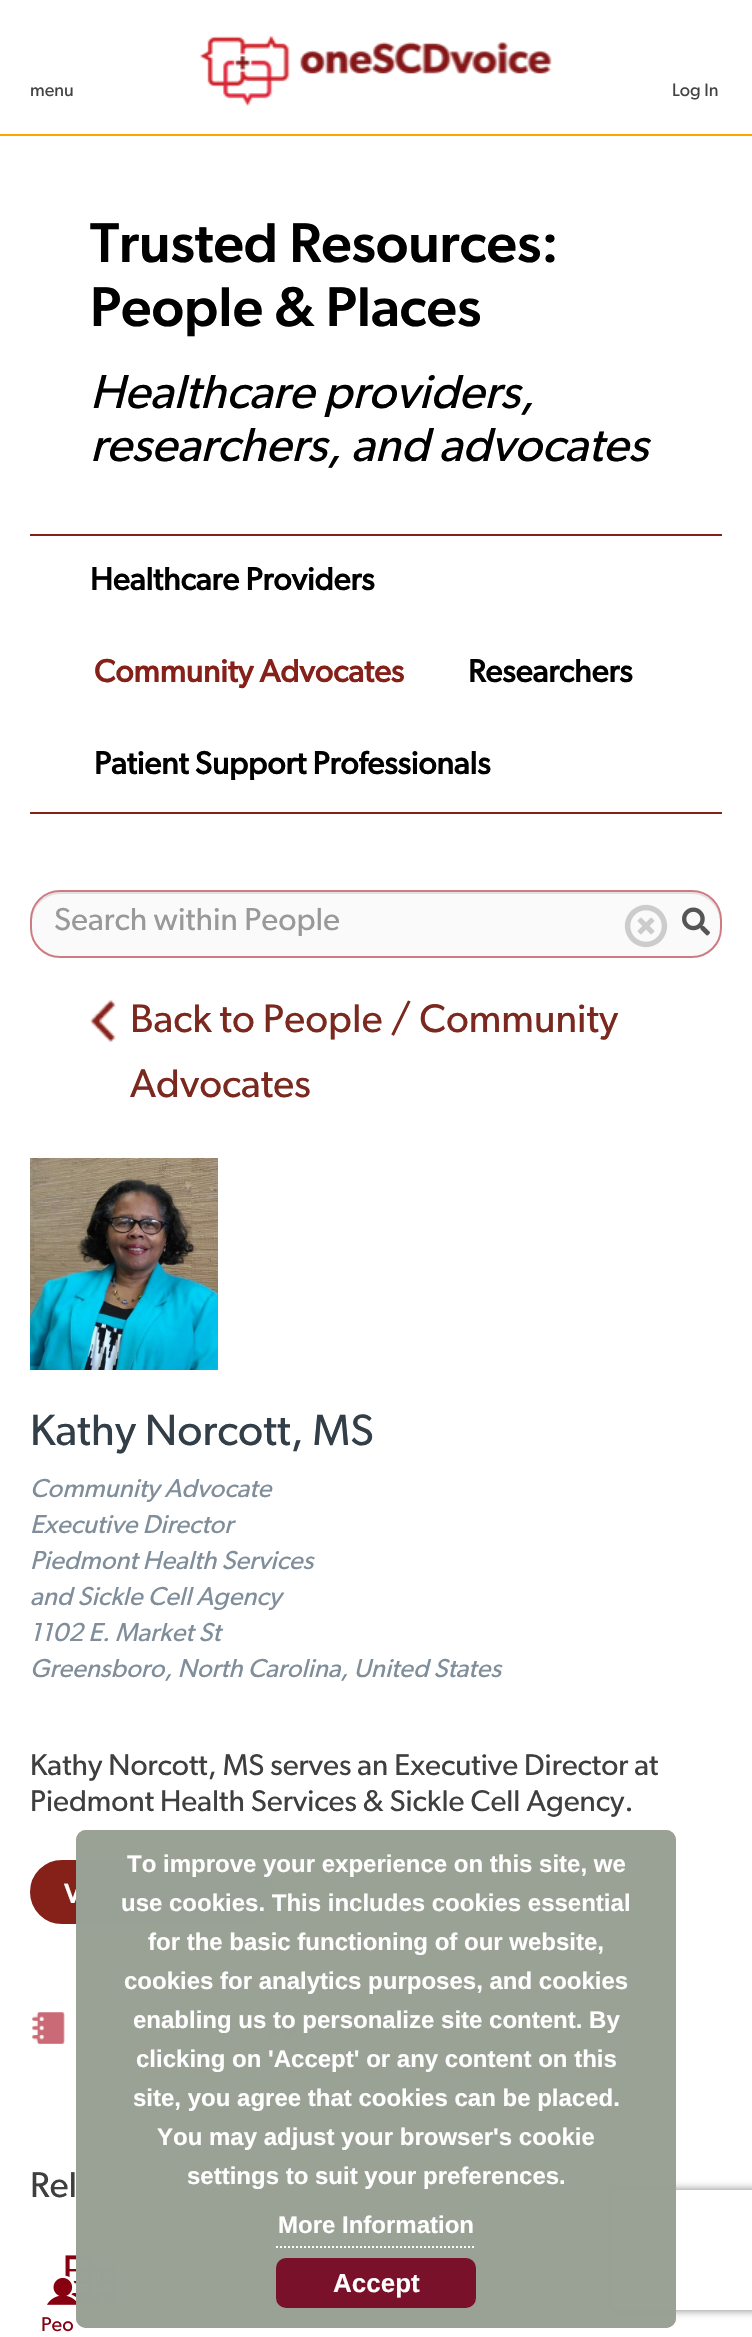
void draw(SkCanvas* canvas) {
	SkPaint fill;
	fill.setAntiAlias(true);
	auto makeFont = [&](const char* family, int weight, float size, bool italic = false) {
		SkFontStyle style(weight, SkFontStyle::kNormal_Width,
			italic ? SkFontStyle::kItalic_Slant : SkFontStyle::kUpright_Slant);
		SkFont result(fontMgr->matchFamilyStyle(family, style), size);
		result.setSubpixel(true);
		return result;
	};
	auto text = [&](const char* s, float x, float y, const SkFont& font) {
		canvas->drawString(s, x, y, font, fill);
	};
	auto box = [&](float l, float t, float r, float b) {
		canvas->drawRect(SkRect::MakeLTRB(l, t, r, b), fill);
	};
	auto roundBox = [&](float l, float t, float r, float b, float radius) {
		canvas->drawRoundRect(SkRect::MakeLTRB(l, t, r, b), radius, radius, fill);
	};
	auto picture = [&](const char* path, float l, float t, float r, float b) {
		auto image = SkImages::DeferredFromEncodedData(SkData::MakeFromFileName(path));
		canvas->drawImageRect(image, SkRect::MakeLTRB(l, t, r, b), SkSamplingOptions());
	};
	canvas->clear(0xFFFFFFFF);
	fill.setColor(0xFFFFA500);
	box(0, 134, 752, 136);
	picture("image0.png", 200, 36, 552, 106);
	fill.setColor(0xFF852119);
	box(30, 534, 722, 536);
	box(30, 812, 722, 814);
	fill.setColor(0xFFFAFAFA);
	roundBox(30, 890, 722, 958, 30);
	fill.setColor(0xFFE1E1E1);
	canvas->drawPath(SkPathBuilder().moveTo(60, 894).lineTo(692, 894).cubicTo(707, 894, 720, 907, 720, 922).lineTo(720, 920).cubicTo(720, 905, 707, 892, 692, 892).lineTo(60, 892).cubicTo(45, 892, 32, 905, 32, 920).lineTo(32, 922).cubicTo(32, 907, 45, 894, 60, 894).close().detach(), fill);
	fill.setStyle(SkPaint::kStroke_Style);
	fill.setStrokeWidth(2);
	fill.setColor(0xFFCE7B84);
	canvas->drawRoundRect(SkRect::MakeLTRB(31, 891, 721, 957), 29, 29, fill);
	picture("image1.png", 624, 904, 668, 948);
	picture("image2.png", 682, 907, 710, 936);
	picture("image3.png", 90, 1000, 116, 1042);
	picture("image4.png", 30, 1158, 218, 1370);
	fill.setStyle(SkPaint::kFill_Style);
	fill.setColor(0xFF852119);
	canvas->drawRoundRect(SkRect::MakeLTRB(32, 1862, 272, 1922), 30, 30, fill);
	fill.setStyle(SkPaint::kStroke_Style);
	fill.setStrokeWidth(4);
	canvas->drawRoundRect(SkRect::MakeLTRB(32, 1862, 272, 1922), 30, 30, fill);
	picture("image5.png", 32, 2012, 65, 2044);
	picture("image6.png", 267, 2017, 297, 2046);
	picture("image7.png", 47, 2255, 115, 2305);
	canvas->save();
	canvas->clipPath(SkPathBuilder(SkPathFillType::kEvenOdd).moveTo(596, 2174).lineTo(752, 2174).lineTo(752, 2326).lineTo(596, 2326).close().moveTo(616, 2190).lineTo(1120, 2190).cubicTo(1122, 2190, 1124, 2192, 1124, 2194).lineTo(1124, 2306).cubicTo(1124, 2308, 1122, 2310, 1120, 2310).lineTo(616, 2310).cubicTo(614, 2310, 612, 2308, 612, 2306).lineTo(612, 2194).cubicTo(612, 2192, 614, 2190, 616, 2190).close().detach(), true);
	fill.setStyle(SkPaint::kFill_Style);
	fill.setColor(0xFF808080);
	fill.setMaskFilter(SkMaskFilter::MakeBlur(kNormal_SkBlurStyle, 5));
	canvas->drawRoundRect(SkRect::MakeLTRB(612, 2190, 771, 2310), 4, 4, fill);
	fill.setMaskFilter(nullptr);
	canvas->restore();
	auto font1 = makeFont("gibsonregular", 400, 18);
	fill.setColor(0xFF454245);
	text("menu", 30, 96, font1);
	text("Log In", 672, 96, font1);
	auto font2 = makeFont("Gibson", 500, 56);
	fill.setColor(0xFF000000);
	text("Trusted Resources:", 90, 262, font2);
	text("People & Places", 90, 326, font2);
	auto font3 = makeFont("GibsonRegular", 400, 48, true);
	text("Healthcare providers,", 90, 408, font3);
	text("researchers, and advocates", 90, 461, font3);
	auto font4 = makeFont("GibsonRegular", 700, 32);
	text("Healthcare Providers", 90, 590, font4);
	fill.setColor(0xFF852119);
	text("Community Advocates", 94, 682, font4);
	fill.setColor(0xFF000000);
	text("Researchers", 468, 682, font4);
	text("Patient Support Professionals", 94, 774, font4);
	auto font5 = makeFont("gibsonregular", 400, 32);
	fill.setColor(0xFF999999);
	text("Search within People", 54, 930, font5);
	auto font6 = makeFont("gibsonregular", 400, 40);
	fill.setColor(0xFF7B291F);
	text("Back to People / Community", 130, 1032, font6);
	text("Advocates", 130, 1097, font6);
	auto font7 = makeFont("gibsonregular", 400, 44);
	fill.setColor(0xFF323E48);
	text("Kathy Norcott, MS", 30, 1445, font7);
	auto font8 = makeFont("GibsonRegular", 400, 26, true);
	fill.setColor(0xFF7F8E9A);
	text("Community Advocate", 30, 1497, font8);
	text("Executive Director", 30, 1533, font8);
	text("Piedmont Health Services", 30, 1569, font8);
	text("and Sickle Cell Agency", 30, 1605, font8);
	text("1102 E. Market St", 30, 1641, font8);
	text("Greensboro, North Carolina, United States", 30, 1677, font8);
	auto font9 = makeFont("gibsonregular", 400, 30);
	fill.setColor(0xFF3F3F3F);
	text("Kathy Norcott, MS serves an Executive Director at", 30, 1775, font9);
	text("Piedmont Health Services & Sickle Cell Agency.", 30, 1811, font9);
	auto font10 = makeFont("Gibson", 500, 28);
	fill.setColor(0xFFFFFFFF);
	text("V", 64, 1903, font10);
	auto font11 = makeFont("gibsonregular", 400, 36);
	fill.setColor(0xFF3F3F3F);
	text("Rel", 30, 2197, font11);
	auto font12 = makeFont("gibsonregular", 400, 20);
	fill.setColor(0xFF870011);
	text("Peo", 41, 2331, font12);
	fill.setColor(0xF299A095);
	roundBox(76, 1830, 676, 2328, 10);
	fill.setStyle(SkPaint::kStroke_Style);
	fill.setStrokeWidth(2);
	fill.setColor(0xFF79112A);
	canvas->drawRoundRect(SkRect::MakeLTRB(277, 2259, 475, 2307), 9, 9, fill);
	fill.setStyle(SkPaint::kFill_Style);
	fill.setColor(0xF299A095);
	roundBox(76, 1830, 676, 2328, 10);
	auto font13 = makeFont("Liberation Sans", 700, 24);
	fill.setColor(0xFFFFFFFF);
	text("To improve your experience on this site, we", 127, 1872, font13);
	text("use cookies. This includes cookies essential", 121, 1911, font13);
	text("for the basic functioning of our website,", 148, 1950, font13);
	text("cookies for analytics purposes, and cookies", 124, 1989, font13);
	text("enabling us to personalize site content. By", 133, 2028, font13);
	text("clicking on 'Accept' or any content on this", 136, 2067, font13);
	text("site, you agree that cookies can be placed.", 133, 2106, font13);
	text("You may adjust your browser's cookie", 157, 2145, font13);
	text("settings to suit your preferences.", 187, 2184, font13);
	fill.setStyle(SkPaint::kStroke_Style);
	fill.setPathEffect(SkDashPathEffect::Make({{2, 2}}, 0));
	canvas->drawPath(SkPathBuilder().moveTo(276, 2247).lineTo(476, 2247).detach(), fill);
	fill.setPathEffect(nullptr);
	fill.setStyle(SkPaint::kFill_Style);
	text("More Information", 278, 2233, font13);
	fill.setColor(0xFF79112A);
	canvas->drawRoundRect(SkRect::MakeLTRB(277, 2259, 475, 2307), 9, 9, fill);
	fill.setStyle(SkPaint::kStroke_Style);
	canvas->drawRoundRect(SkRect::MakeLTRB(277, 2259, 475, 2307), 9, 9, fill);
	auto font14 = makeFont("Liberation Sans", 700, 26);
	fill.setStyle(SkPaint::kFill_Style);
	fill.setColor(0xFFFFFFFF);
	text("Accept", 333, 2292, font14);
}
